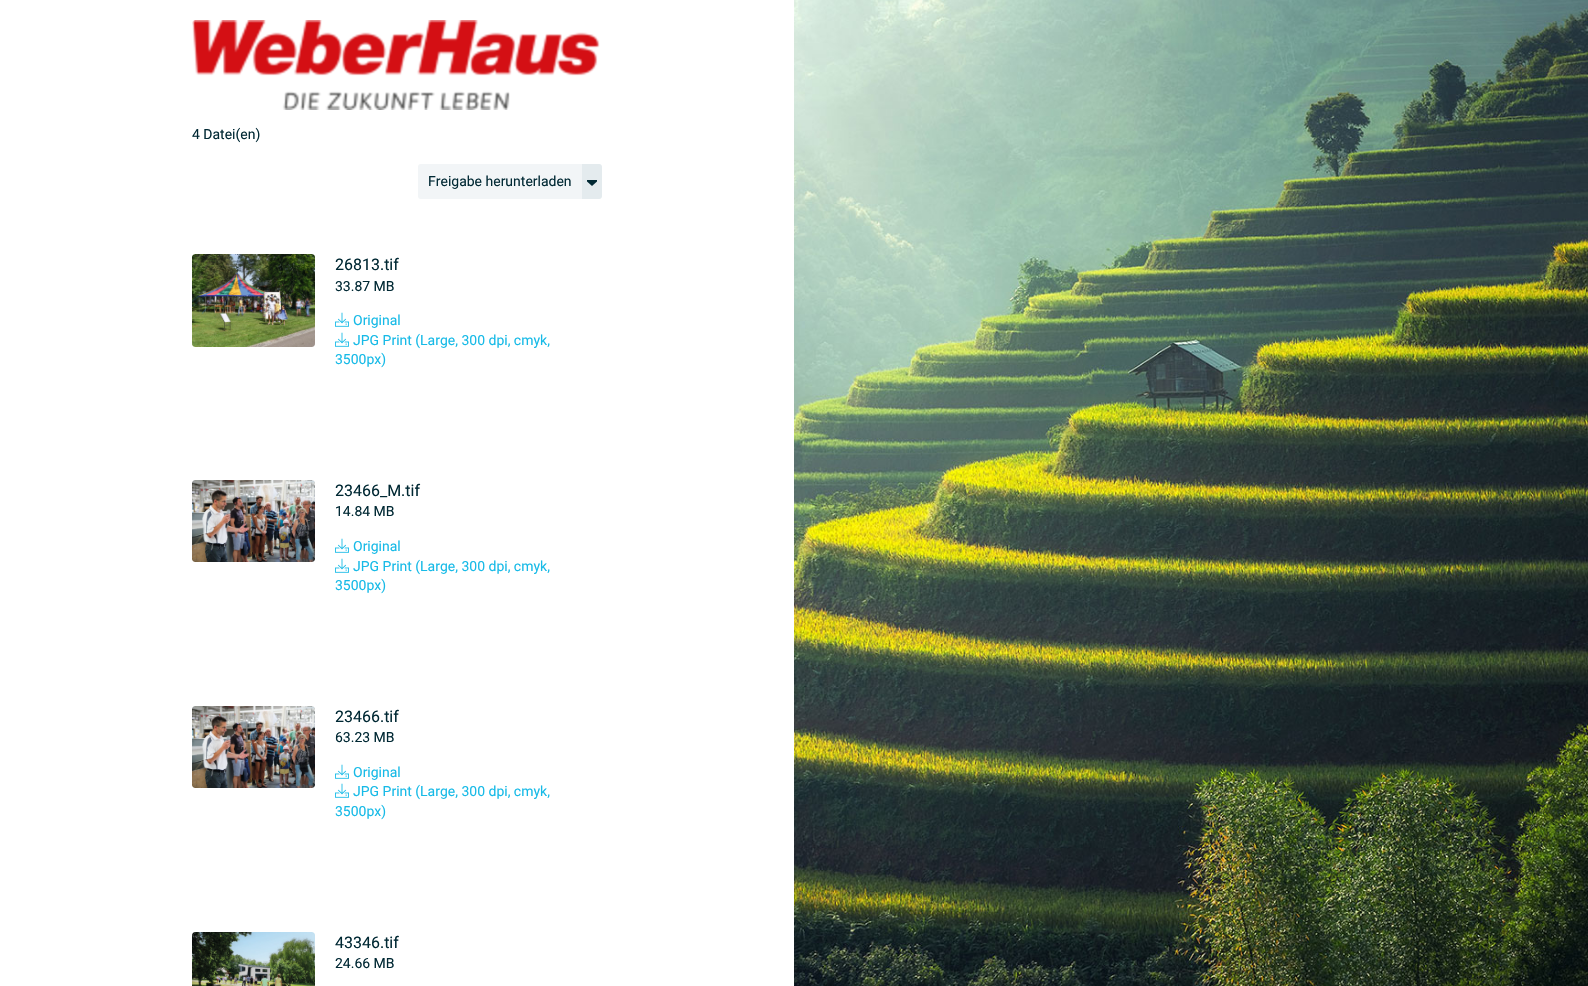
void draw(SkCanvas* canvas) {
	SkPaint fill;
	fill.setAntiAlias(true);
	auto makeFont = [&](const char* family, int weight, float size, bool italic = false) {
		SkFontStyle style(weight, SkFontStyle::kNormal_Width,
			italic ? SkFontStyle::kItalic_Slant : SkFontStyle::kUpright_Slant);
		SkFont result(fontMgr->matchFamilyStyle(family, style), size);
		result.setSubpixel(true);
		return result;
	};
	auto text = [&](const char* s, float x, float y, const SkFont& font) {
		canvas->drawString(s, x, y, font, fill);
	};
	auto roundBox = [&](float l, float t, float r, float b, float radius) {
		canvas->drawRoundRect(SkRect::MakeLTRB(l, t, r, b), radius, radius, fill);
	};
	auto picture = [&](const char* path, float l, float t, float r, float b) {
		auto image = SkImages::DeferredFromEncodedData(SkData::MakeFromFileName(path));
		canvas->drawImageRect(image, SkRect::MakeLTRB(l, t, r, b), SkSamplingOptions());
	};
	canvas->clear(0xFFFFFFFF);
	picture("image0.png", 192, 20, 600, 110);
	fill.setColor(0xFFF2F5F7);
	roundBox(418, 164, 602, 199, 3);
	fill.setColor(0xFFE4EBEE);
	canvas->drawPath(SkPathBuilder().moveTo(582, 164).lineTo(599, 164).cubicTo(600.5f, 164, 602, 165.5f, 602, 167).lineTo(602, 196).cubicTo(602, 197.5f, 600.5f, 199, 599, 199).lineTo(582, 199).close().detach(), fill);
	picture("image1.png", 587, 180, 597, 186);
	picture("image2.png", 192, 254, 315, 347);
	picture("image3.png", 335, 312, 349, 327);
	picture("image3.png", 335, 332, 349, 347);
	picture("image4.png", 192, 480, 315, 562);
	picture("image3.png", 335, 538, 349, 553);
	picture("image3.png", 335, 558, 349, 573);
	picture("image5.png", 192, 706, 315, 788);
	picture("image3.png", 335, 764, 349, 779);
	picture("image3.png", 335, 783, 349, 798);
	picture("image6.png", 192, 932, 315, 986);
	picture("image7.png", 794, 0, 1588, 986);
	auto font1 = makeFont("Roboto", 400, 14);
	fill.setColor(0xFF012934);
	text("4 Datei(en)", 192, 139, font1);
	text("Freigabe herunterladen", 428, 186, font1);
	auto font2 = makeFont("Roboto", 400, 16);
	text("26813.tif", 335, 270, font2);
	text("33.87 MB", 335, 291, font1);
	fill.setColor(0xFF16BAE7);
	text("Original", 353, 325, font1);
	text("JPG Print (Large, 300 dpi, cmyk,", 353, 345, font1);
	text("3500px)", 335, 364, font1);
	fill.setColor(0xFF012934);
	text("23466_M.tif", 335, 496, font2);
	text("14.84 MB", 335, 516, font1);
	fill.setColor(0xFF16BAE7);
	text("Original", 353, 551, font1);
	text("JPG Print (Large, 300 dpi, cmyk,", 353, 571, font1);
	text("3500px)", 335, 590, font1);
	fill.setColor(0xFF012934);
	text("23466.tif", 335, 722, font2);
	text("63.23 MB", 335, 742, font1);
	fill.setColor(0xFF16BAE7);
	text("Original", 353, 777, font1);
	text("JPG Print (Large, 300 dpi, cmyk,", 353, 796, font1);
	text("3500px)", 335, 816, font1);
	fill.setColor(0xFF012934);
	text("43346.tif", 335, 948, font2);
	text("24.66 MB", 335, 968, font1);
}
